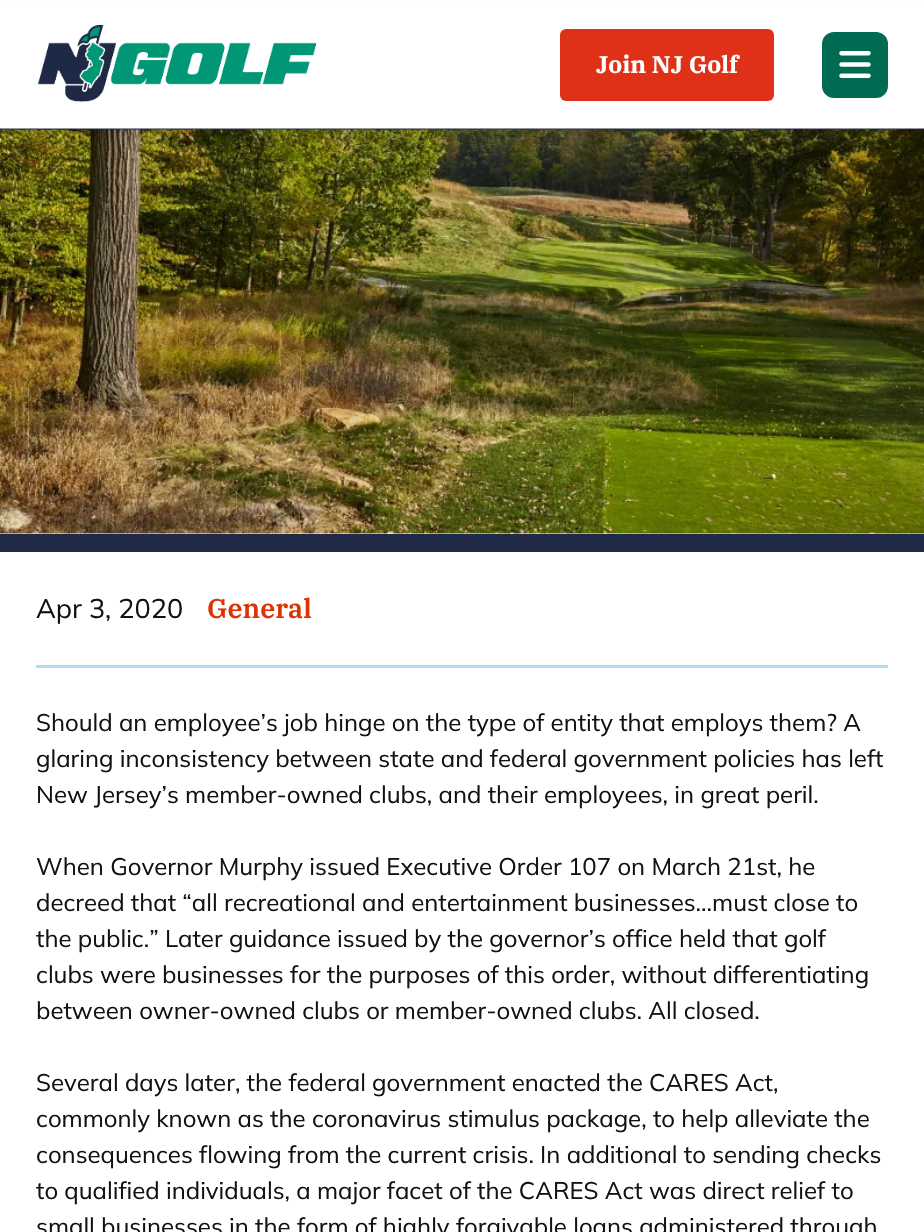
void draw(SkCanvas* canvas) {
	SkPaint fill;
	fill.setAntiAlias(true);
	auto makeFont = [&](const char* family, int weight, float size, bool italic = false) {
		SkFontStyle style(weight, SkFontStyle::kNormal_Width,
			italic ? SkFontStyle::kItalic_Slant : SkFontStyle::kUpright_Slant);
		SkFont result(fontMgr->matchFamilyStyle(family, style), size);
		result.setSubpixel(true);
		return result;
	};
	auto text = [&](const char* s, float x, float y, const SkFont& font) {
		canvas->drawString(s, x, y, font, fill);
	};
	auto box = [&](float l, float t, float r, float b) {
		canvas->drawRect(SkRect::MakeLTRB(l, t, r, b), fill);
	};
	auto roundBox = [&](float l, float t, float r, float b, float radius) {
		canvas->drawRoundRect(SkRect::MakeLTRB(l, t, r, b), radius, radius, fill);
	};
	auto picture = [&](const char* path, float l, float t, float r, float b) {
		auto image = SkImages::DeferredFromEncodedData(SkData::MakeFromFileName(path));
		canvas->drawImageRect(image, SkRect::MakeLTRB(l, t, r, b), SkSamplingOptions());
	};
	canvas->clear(0xFFFFFFFF);
	picture("image2.png", 0, 129, 924, 534);
	fill.setColor(0x1A000000);
	fill.setMaskFilter(SkMaskFilter::MakeBlur(kNormal_SkBlurStyle, 3));
	canvas->drawRect(SkRect::MakeLTRB(3, 6, 921, 129), fill);
	fill.setMaskFilter(nullptr);
	fill.setMaskFilter(SkMaskFilter::MakeBlur(kNormal_SkBlurStyle, 4.5f));
	canvas->drawRect(SkRect::MakeLTRB(2, 8, 923, 134), fill);
	fill.setMaskFilter(nullptr);
	fill.setColor(0xFFFFFFFF);
	box(0, 1, 924, 129);
	fill.setColor(0x80202945);
	box(0, 128, 924, 130);
	picture("image0.png", 37, 24, 317, 102);
	fill.setColor(0xFFDF3118);
	roundBox(560, 29, 774, 101, 6);
	fill.setColor(0xFF006A53);
	roundBox(822, 32, 888, 98, 12);
	picture("image1.png", 839, 51, 871, 78);
	fill.setColor(0xFF202945);
	box(0, 534, 924, 552);
	fill.setColor(0xFFB1DDF1);
	box(36, 665, 888, 668);
	auto font1 = makeFont("IBM Plex Serif", 700, 24);
	fill.setColor(0xFFFFFFFF);
	text("Join NJ Golf", 596, 73, font1);
	auto font2 = makeFont("Mulish", 400, 27);
	fill.setColor(0xFF111214);
	text("Apr 3, 2020", 36, 618, font2);
	auto font3 = makeFont("IBM Plex Serif", 600, 27);
	fill.setColor(0xFFDF3101);
	text("General", 207, 618, font3);
	auto font4 = makeFont("Mulish", 400, 24);
	fill.setColor(0xFF111214);
	text("Should an employee’s job hinge on the type of entity that employs them? A", 36, 731, font4);
	text("glaring inconsistency between state and federal government policies has left", 36, 767, font4);
	text("New Jersey’s member-owned clubs, and their employees, in great peril.", 36, 803, font4);
	text("When Governor Murphy issued Executive Order 107 on March 21st, he", 36, 875, font4);
	text("decreed that “all recreational and entertainment businesses…must close to", 36, 911, font4);
	text("the public.” Later guidance issued by the governor’s office held that golf", 36, 947, font4);
	text("clubs were businesses for the purposes of this order, without differentiating", 36, 983, font4);
	text("between owner-owned clubs or member-owned clubs. All closed.", 36, 1019, font4);
	text("Several days later, the federal government enacted the CARES Act,", 36, 1091, font4);
	text("commonly known as the coronavirus stimulus package, to help alleviate the", 36, 1127, font4);
	text("consequences flowing from the current crisis. In additional to sending checks", 36, 1163, font4);
	text("to qualified individuals, a major facet of the CARES Act was direct relief to", 36, 1199, font4);
	text("small businesses in the form of highly forgivable loans administered through", 36, 1235, font4);
}
